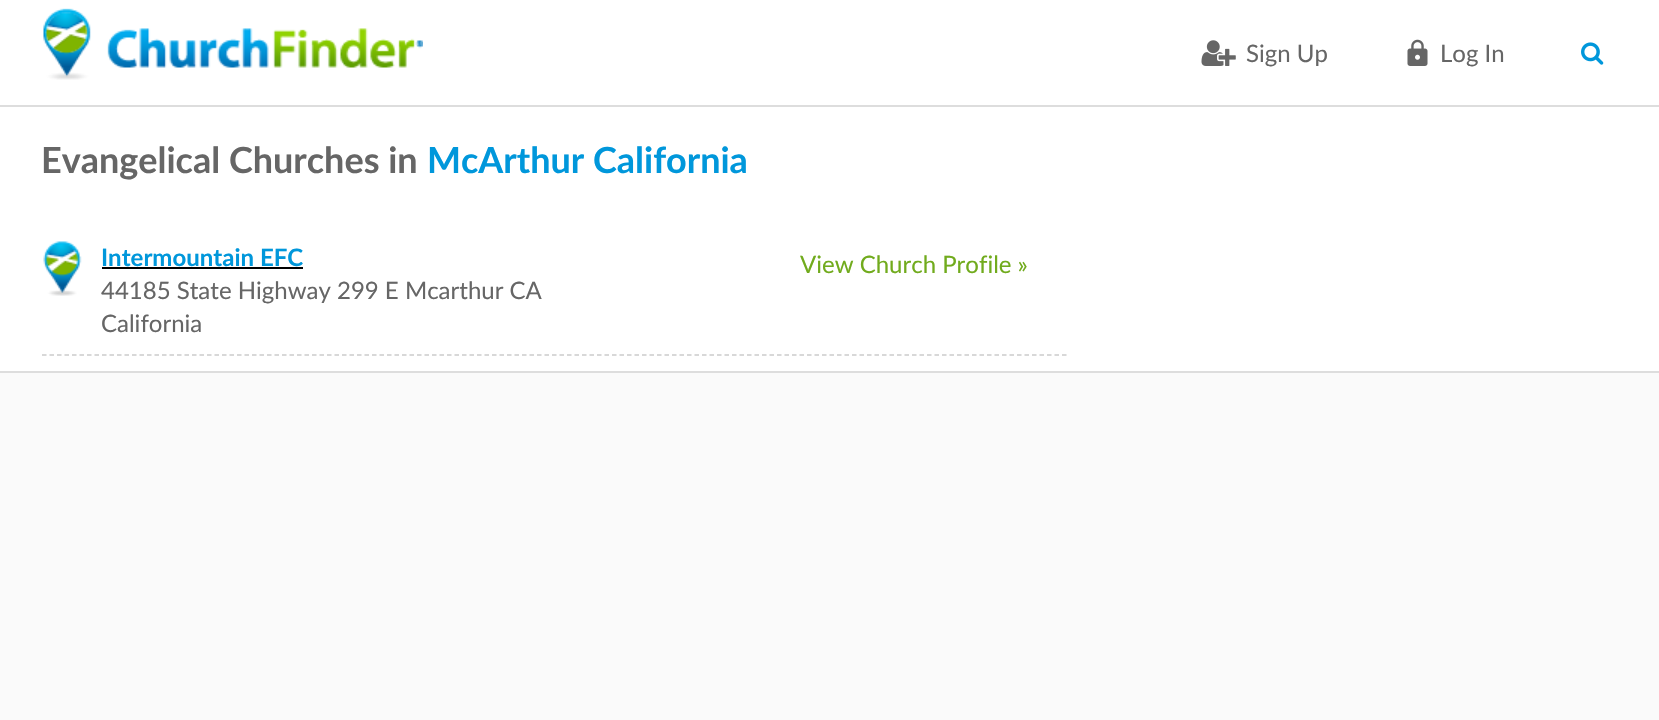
void draw(SkCanvas* canvas) {
	SkPaint fill;
	fill.setAntiAlias(true);
	auto makeFont = [&](const char* family, int weight, float size, bool italic = false) {
		SkFontStyle style(weight, SkFontStyle::kNormal_Width,
			italic ? SkFontStyle::kItalic_Slant : SkFontStyle::kUpright_Slant);
		SkFont result(fontMgr->matchFamilyStyle(family, style), size);
		result.setSubpixel(true);
		return result;
	};
	auto text = [&](const char* s, float x, float y, const SkFont& font) {
		canvas->drawString(s, x, y, font, fill);
	};
	auto box = [&](float l, float t, float r, float b) {
		canvas->drawRect(SkRect::MakeLTRB(l, t, r, b), fill);
	};
	auto picture = [&](const char* path, float l, float t, float r, float b) {
		auto image = SkImages::DeferredFromEncodedData(SkData::MakeFromFileName(path));
		canvas->drawImageRect(image, SkRect::MakeLTRB(l, t, r, b), SkSamplingOptions());
	};
	canvas->clear(0xFFFFFFFF);
	fill.setColor(0xFFDDDDDD);
	box(0, 105, 1659, 107);
	picture("image0.png", 43, 8, 423, 80);
	picture("image1.png", 1201, 40, 1236, 66);
	picture("image2.png", 1407, 39, 1428, 66);
	picture("image3.png", 1581, 42, 1604, 65);
	picture("image4.png", 43, 241, 82, 296);
	fill.setStyle(SkPaint::kStroke_Style);
	fill.setStrokeWidth(1.5f);
	fill.setColor(0xFFCCCCCC);
	fill.setPathEffect(SkDashPathEffect::Make({{4.5f, 3}}, 0));
	canvas->drawPath(SkPathBuilder().moveTo(42, 355).lineTo(1066.5f, 355).detach(), fill);
	fill.setPathEffect(nullptr);
	fill.setStyle(SkPaint::kFill_Style);
	fill.setColor(0xFF000000);
	box(102, 267, 303, 269);
	fill.setColor(0xFFFAFAFA);
	box(0, 373, 1659, 720);
	fill.setColor(0xFFDDDDDD);
	box(0, 371, 1659, 373);
	auto font1 = makeFont("Lato", 400, 24);
	fill.setColor(0xFF666666);
	text("Sign Up", 1246, 62, font1);
	text("Log In", 1440, 62, font1);
	auto font2 = makeFont("Lato", 700, 36);
	text("Evangelical Churches in", 41, 173, font2);
	fill.setColor(0xFF0097DB);
	text("McArthur California", 427, 173, font2);
	auto font3 = makeFont("Lato", 700, 24);
	text("Intermountain EFC", 101, 266, font3);
	fill.setColor(0xFF71AB1D);
	text("View Church Profile »", 800, 273, font1);
	fill.setColor(0xFF666666);
	text("44185 State Highway 299 E Mcarthur CA", 101, 299, font1);
	text("California", 101, 332, font1);
}
